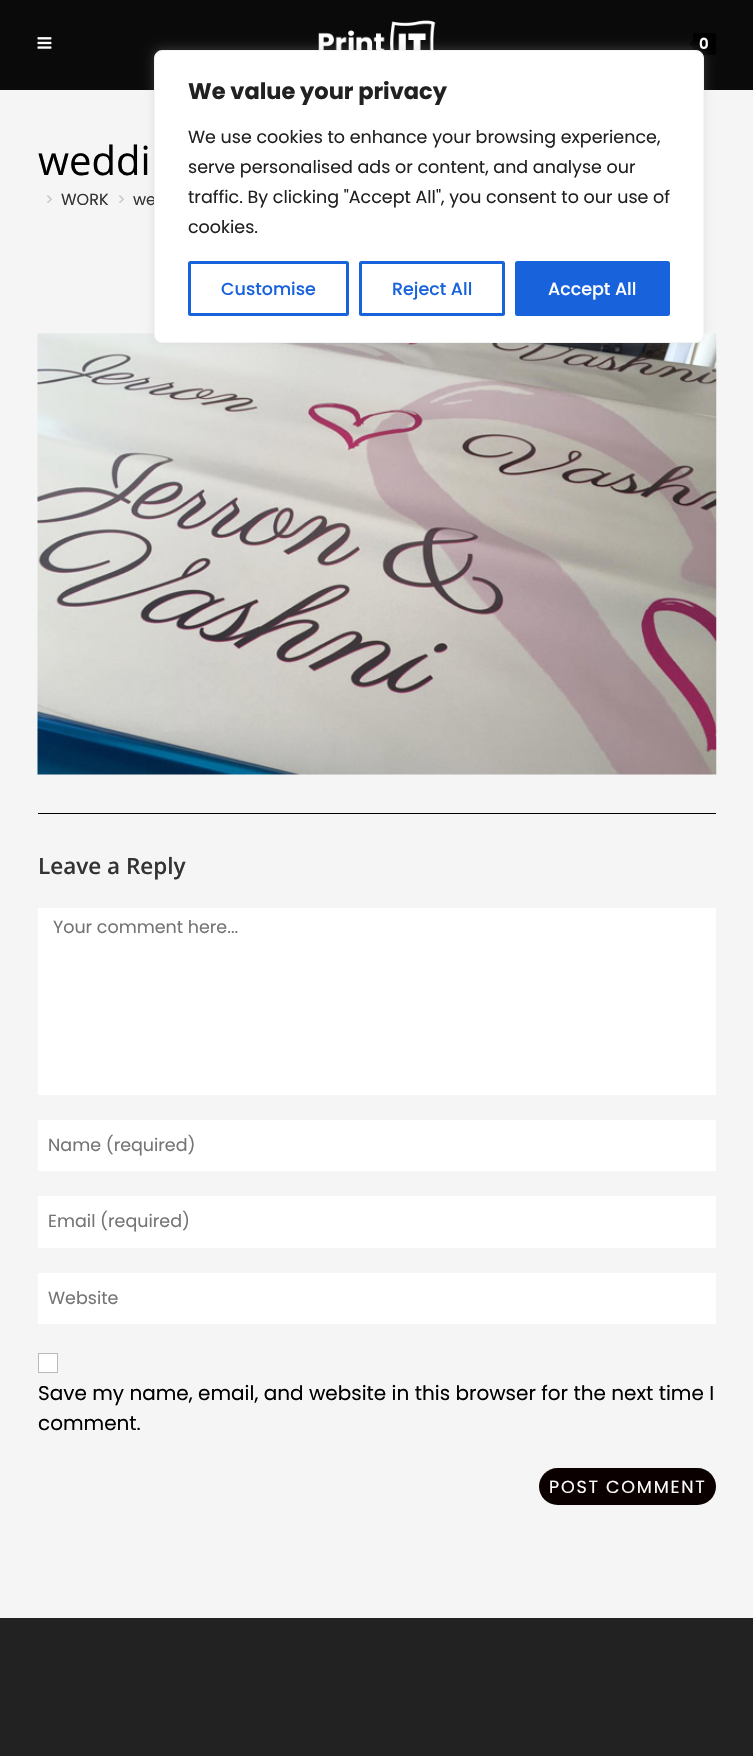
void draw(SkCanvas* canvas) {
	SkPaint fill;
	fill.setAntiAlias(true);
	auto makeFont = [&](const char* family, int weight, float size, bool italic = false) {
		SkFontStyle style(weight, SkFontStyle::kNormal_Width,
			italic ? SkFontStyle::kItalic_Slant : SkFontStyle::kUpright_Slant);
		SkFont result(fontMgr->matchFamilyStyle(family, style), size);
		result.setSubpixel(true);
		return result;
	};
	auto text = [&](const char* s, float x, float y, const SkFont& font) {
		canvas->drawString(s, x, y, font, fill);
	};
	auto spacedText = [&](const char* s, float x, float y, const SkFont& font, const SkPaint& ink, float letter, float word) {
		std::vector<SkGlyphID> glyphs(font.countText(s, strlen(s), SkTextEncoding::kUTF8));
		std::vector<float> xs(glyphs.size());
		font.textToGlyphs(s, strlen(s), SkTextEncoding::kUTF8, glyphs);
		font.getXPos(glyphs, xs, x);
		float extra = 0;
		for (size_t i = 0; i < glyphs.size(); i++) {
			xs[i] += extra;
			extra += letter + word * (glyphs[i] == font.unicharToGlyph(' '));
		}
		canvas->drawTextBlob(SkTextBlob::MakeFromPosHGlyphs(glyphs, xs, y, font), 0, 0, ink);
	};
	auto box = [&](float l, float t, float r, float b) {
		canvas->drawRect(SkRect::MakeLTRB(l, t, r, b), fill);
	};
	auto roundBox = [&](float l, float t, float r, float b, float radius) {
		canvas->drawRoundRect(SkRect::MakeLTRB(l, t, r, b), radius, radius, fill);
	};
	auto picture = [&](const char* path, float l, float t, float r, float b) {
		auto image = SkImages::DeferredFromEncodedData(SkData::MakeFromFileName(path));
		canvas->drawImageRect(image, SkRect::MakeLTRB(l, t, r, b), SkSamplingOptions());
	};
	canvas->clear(0xFFF5F5F5);
	fill.setColor(0xFF0A0A0A);
	box(0, 0, 753, 90);
	picture("image0.png", 37, 37, 52, 49);
	picture("image1.png", 318, 20, 436, 50);
	fill.setColor(0xFF000000);
	roundBox(693, 33, 716, 55, 2.5f);
	canvas->drawPath(SkPathBuilder().moveTo(695, 37.5f).lineTo(695, 50).lineTo(689, 44).close().detach(), fill);
	picture("image2.png", 37, 333, 717, 775);
	box(38, 813, 716, 814);
	fill.setColor(0xFFFFFFFF);
	box(38, 908, 716, 1095);
	box(38, 1120, 716, 1171);
	box(38, 1196, 716, 1248);
	box(38, 1273, 716, 1324);
	canvas->drawRect(SkRect::MakeLTRB(38.5f, 1353.5f, 57.5f, 1372.5f), fill);
	fill.setStyle(SkPaint::kStroke_Style);
	fill.setStrokeWidth(1);
	fill.setColor(0xFFBBBBBB);
	canvas->drawRect(SkRect::MakeLTRB(38.5f, 1353.5f, 57.5f, 1372.5f), fill);
	fill.setStyle(SkPaint::kFill_Style);
	fill.setColor(0xFF0A0000);
	roundBox(539, 1468, 716, 1505, 18.5f);
	fill.setColor(0xFF222222);
	box(0, 1618, 753, 1756);
	fill.setColor(0x4DACABAB);
	fill.setMaskFilter(SkMaskFilter::MakeBlur(kNormal_SkBlurStyle, 6));
	canvas->drawRoundRect(SkRect::MakeLTRB(154, 49, 704, 341), 8, 8, fill);
	fill.setMaskFilter(nullptr);
	auto font1 = makeFont("Poppins", 600, 15);
	fill.setColor(0xFFFFFFFF);
	spacedText("0", 699, 49, font1, fill, 1, 0);
	auto font2 = makeFont("Open Sans", 400, 40);
	fill.setColor(0xFF000000);
	text("weddi", 38, 175, font2);
	auto font3 = makeFont("Poppins", 400, 16);
	fill.setColor(0xFFC6C6C6);
	text(">", 45, 205, font3);
	fill.setColor(0xFF333333);
	text("WORK", 61, 205, font3);
	fill.setColor(0xFFC6C6C6);
	text(">", 117, 205, font3);
	fill.setColor(0xFF333333);
	text("we", 133, 205, font3);
	auto font4 = makeFont("Open Sans", 600, 22.5f);
	text("Leave a Reply", 38, 874, font4);
	auto font5 = makeFont("Poppins", 400, 17.5f);
	fill.setColor(0xFF757575);
	text("Your comment here...", 53, 933, font5);
	text("Name (required)", 48, 1151, font5);
	text("Email (required)", 48, 1227, font5);
	text("Website", 48, 1304, font5);
	auto font6 = makeFont("Poppins", 400, 20);
	fill.setColor(0xFF000000);
	text("Save my name, email, and website in this browser for the next time I", 38, 1400, font6);
	text("comment.", 38, 1430, font6);
	fill.setColor(0xFFFFFFFF);
	spacedText("POST COMMENT", 549, 1493, font5, fill, 1.75f, 0);
	canvas->drawRoundRect(SkRect::MakeLTRB(154.5f, 50.5f, 703.5f, 342.5f), 7.5f, 7.5f, fill);
	fill.setStyle(SkPaint::kStroke_Style);
	fill.setColor(0xFFF4F4F4);
	canvas->drawRoundRect(SkRect::MakeLTRB(154.5f, 50.5f, 703.5f, 342.5f), 7.5f, 7.5f, fill);
	auto font7 = makeFont("Poppins", 700, 22.5f);
	fill.setStyle(SkPaint::kFill_Style);
	fill.setColor(0xFF212121);
	text("We value your privacy", 188, 99, font7);
	text("We use cookies to enhance your browsing experience,", 188, 143, font5);
	text("serve personalised ads or content, and analyse our", 188, 173, font5);
	text("traffic. By clicking \"Accept All\", you consent to our use of", 188, 203, font5);
	text("cookies.", 188, 233, font5);
	fill.setStyle(SkPaint::kStroke_Style);
	fill.setStrokeWidth(3);
	fill.setColor(0xFF1863DC);
	canvas->drawRoundRect(SkRect::MakeLTRB(189.5f, 262.5f, 347.5f, 314.5f), 1, 1, fill);
	auto font8 = makeFont("Poppins", 500, 17.5f);
	fill.setStyle(SkPaint::kFill_Style);
	text("Customise", 221, 295, font8);
	fill.setStyle(SkPaint::kStroke_Style);
	canvas->drawRoundRect(SkRect::MakeLTRB(360.5f, 262.5f, 503.5f, 314.5f), 1, 1, fill);
	fill.setStyle(SkPaint::kFill_Style);
	text("Reject All", 392, 295, font8);
	canvas->drawRoundRect(SkRect::MakeLTRB(516.5f, 262.5f, 668.5f, 314.5f), 1, 1, fill);
	fill.setStyle(SkPaint::kStroke_Style);
	canvas->drawRoundRect(SkRect::MakeLTRB(516.5f, 262.5f, 668.5f, 314.5f), 1, 1, fill);
	fill.setStyle(SkPaint::kFill_Style);
	fill.setColor(0xFFFFFFFF);
	text("Accept All", 548, 295, font8);
}
